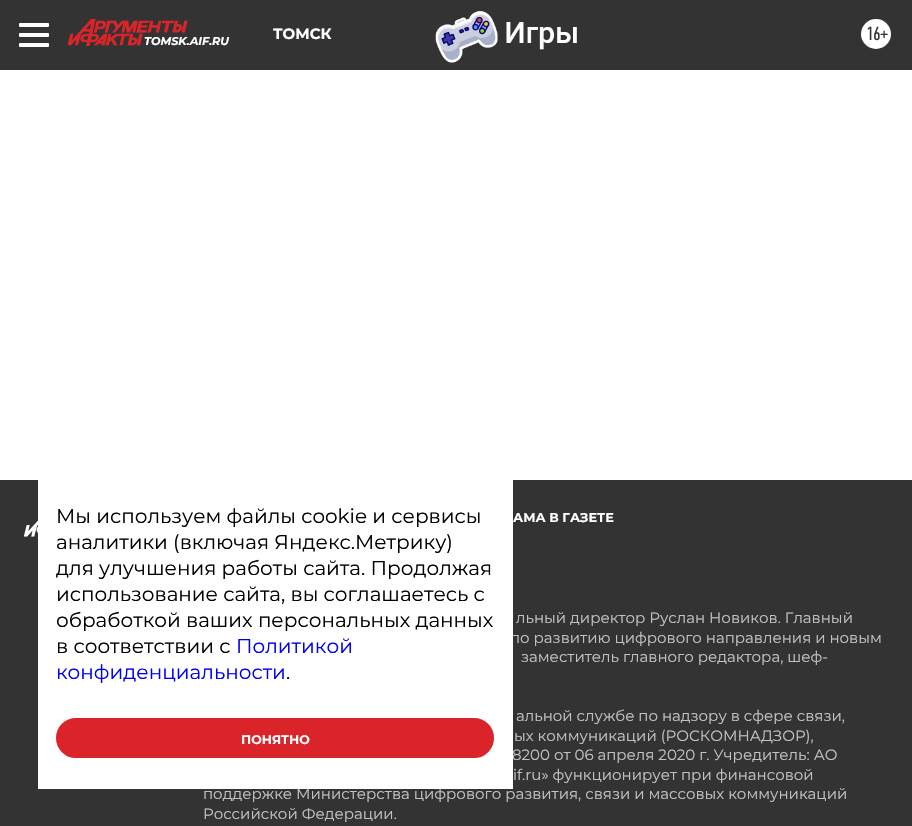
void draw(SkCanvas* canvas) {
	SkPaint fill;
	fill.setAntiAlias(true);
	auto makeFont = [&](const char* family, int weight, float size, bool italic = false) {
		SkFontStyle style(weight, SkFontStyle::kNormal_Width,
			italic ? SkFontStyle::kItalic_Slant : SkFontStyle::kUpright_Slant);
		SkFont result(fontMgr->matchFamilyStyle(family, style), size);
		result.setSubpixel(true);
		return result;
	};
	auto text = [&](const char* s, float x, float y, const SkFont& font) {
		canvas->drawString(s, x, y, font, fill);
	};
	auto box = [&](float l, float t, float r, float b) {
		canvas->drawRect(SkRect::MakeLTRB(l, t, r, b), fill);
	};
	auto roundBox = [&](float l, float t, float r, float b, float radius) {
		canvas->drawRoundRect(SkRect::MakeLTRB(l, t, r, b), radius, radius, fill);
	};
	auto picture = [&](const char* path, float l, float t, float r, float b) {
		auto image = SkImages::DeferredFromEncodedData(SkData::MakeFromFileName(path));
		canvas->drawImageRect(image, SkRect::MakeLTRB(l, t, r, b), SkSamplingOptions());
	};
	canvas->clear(0xFFFFFFFF);
	fill.setColor(0xFF333333);
	box(0, 0, 912, 70);
	fill.setColor(0xFFFFFFFF);
	roundBox(19, 23, 49, 27, 1);
	roundBox(19, 33, 49, 37, 1);
	roundBox(19, 43, 49, 47, 1);
	picture("image0.png", 435, 11, 577, 63);
	canvas->drawCircle(876, 34, 15, fill);
	picture("image1.png", 68, 19, 188, 46);
	fill.setColor(0xFF333333);
	box(0, 480, 912, 826);
	picture("image2.png", 24, 520, 38, 537);
	auto font1 = makeFont("Montserrat", 700, 15);
	fill.setColor(0xFFFFFFFF);
	text("ТОМСК", 273, 39, font1);
	auto font2 = makeFont("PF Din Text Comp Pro", 400, 19);
	fill.setColor(0xFF333333);
	text("16+", 866, 40, font2);
	auto font3 = makeFont("Montserrat", 700, 11.25f, true);
	fill.setColor(0xFFFFFFFF);
	text("TOMSK.AIF.RU", 144, 45, font3);
	auto font4 = makeFont("Montserrat", 700, 12.75f);
	text("АМА В ГАЗЕТЕ", 513, 522, font4);
	auto font5 = makeFont("Montserrat", 400, 15);
	fill.setColor(0xFFC2C2C2);
	text("льный директор Руслан Новиков. Главный", 516, 623, font5);
	text("по развитию цифрового направления и новым", 510, 643, font5);
	text("заместитель главного редактора, шеф-", 521, 662, font5);
	text("альной службе по надзору в сфере связи,", 516, 721, font5);
	text("ых коммуникаций (РОСКОМНАДЗОР),", 514, 741, font5);
	text("8200 от 06 апреля 2020 г. Учредитель: АО", 512, 760, font5);
	text("if.ru» функционирует при финансовой", 513, 780, font5);
	text("поддержке Министерства цифрового развития, связи и массовых коммуникаций", 203, 799, font5);
	fill.setColor(0xFFFFFFFF);
	box(38, 480, 513, 789);
	fill.setColor(0xFFDA2429);
	canvas->drawRoundRect(SkRect::MakeLTRB(57.5f, 719.5f, 492.5f, 756.5f), 18.5f, 18.5f, fill);
	fill.setStyle(SkPaint::kStroke_Style);
	fill.setStrokeWidth(3);
	canvas->drawRoundRect(SkRect::MakeLTRB(57.5f, 719.5f, 492.5f, 756.5f), 18.5f, 18.5f, fill);
	auto font6 = makeFont("Montserrat", 700, 12.5f);
	fill.setStyle(SkPaint::kFill_Style);
	fill.setColor(0xFFFFFFFF);
	text("ПОНЯТНО", 241, 744, font6);
	auto font7 = makeFont("Montserrat", 400, 20);
	fill.setColor(0xFF000000);
	text(".", 286, 679, font7);
	fill.setColor(0xFF0000EE);
	text("конфиденциальности", 56, 679, font7);
	text("Политикой", 236, 653, font7);
	fill.setColor(0xFF000000);
	text("в соответствии с", 56, 653, font7);
	text("обработкой ваших персональных данных", 56, 627, font7);
	text("использование сайта, вы соглашаетесь с", 56, 601, font7);
	text("для улучшения работы сайта. Продолжая", 56, 575, font7);
	text("аналитики (включая Яндекс.Метрику)", 56, 549, font7);
	text("Мы используем файлы cookie и сервисы", 56, 523, font7);
	fill.setColor(0xFFC2C2C2);
	text("Российской Федерации.", 203, 819, font5);
}
